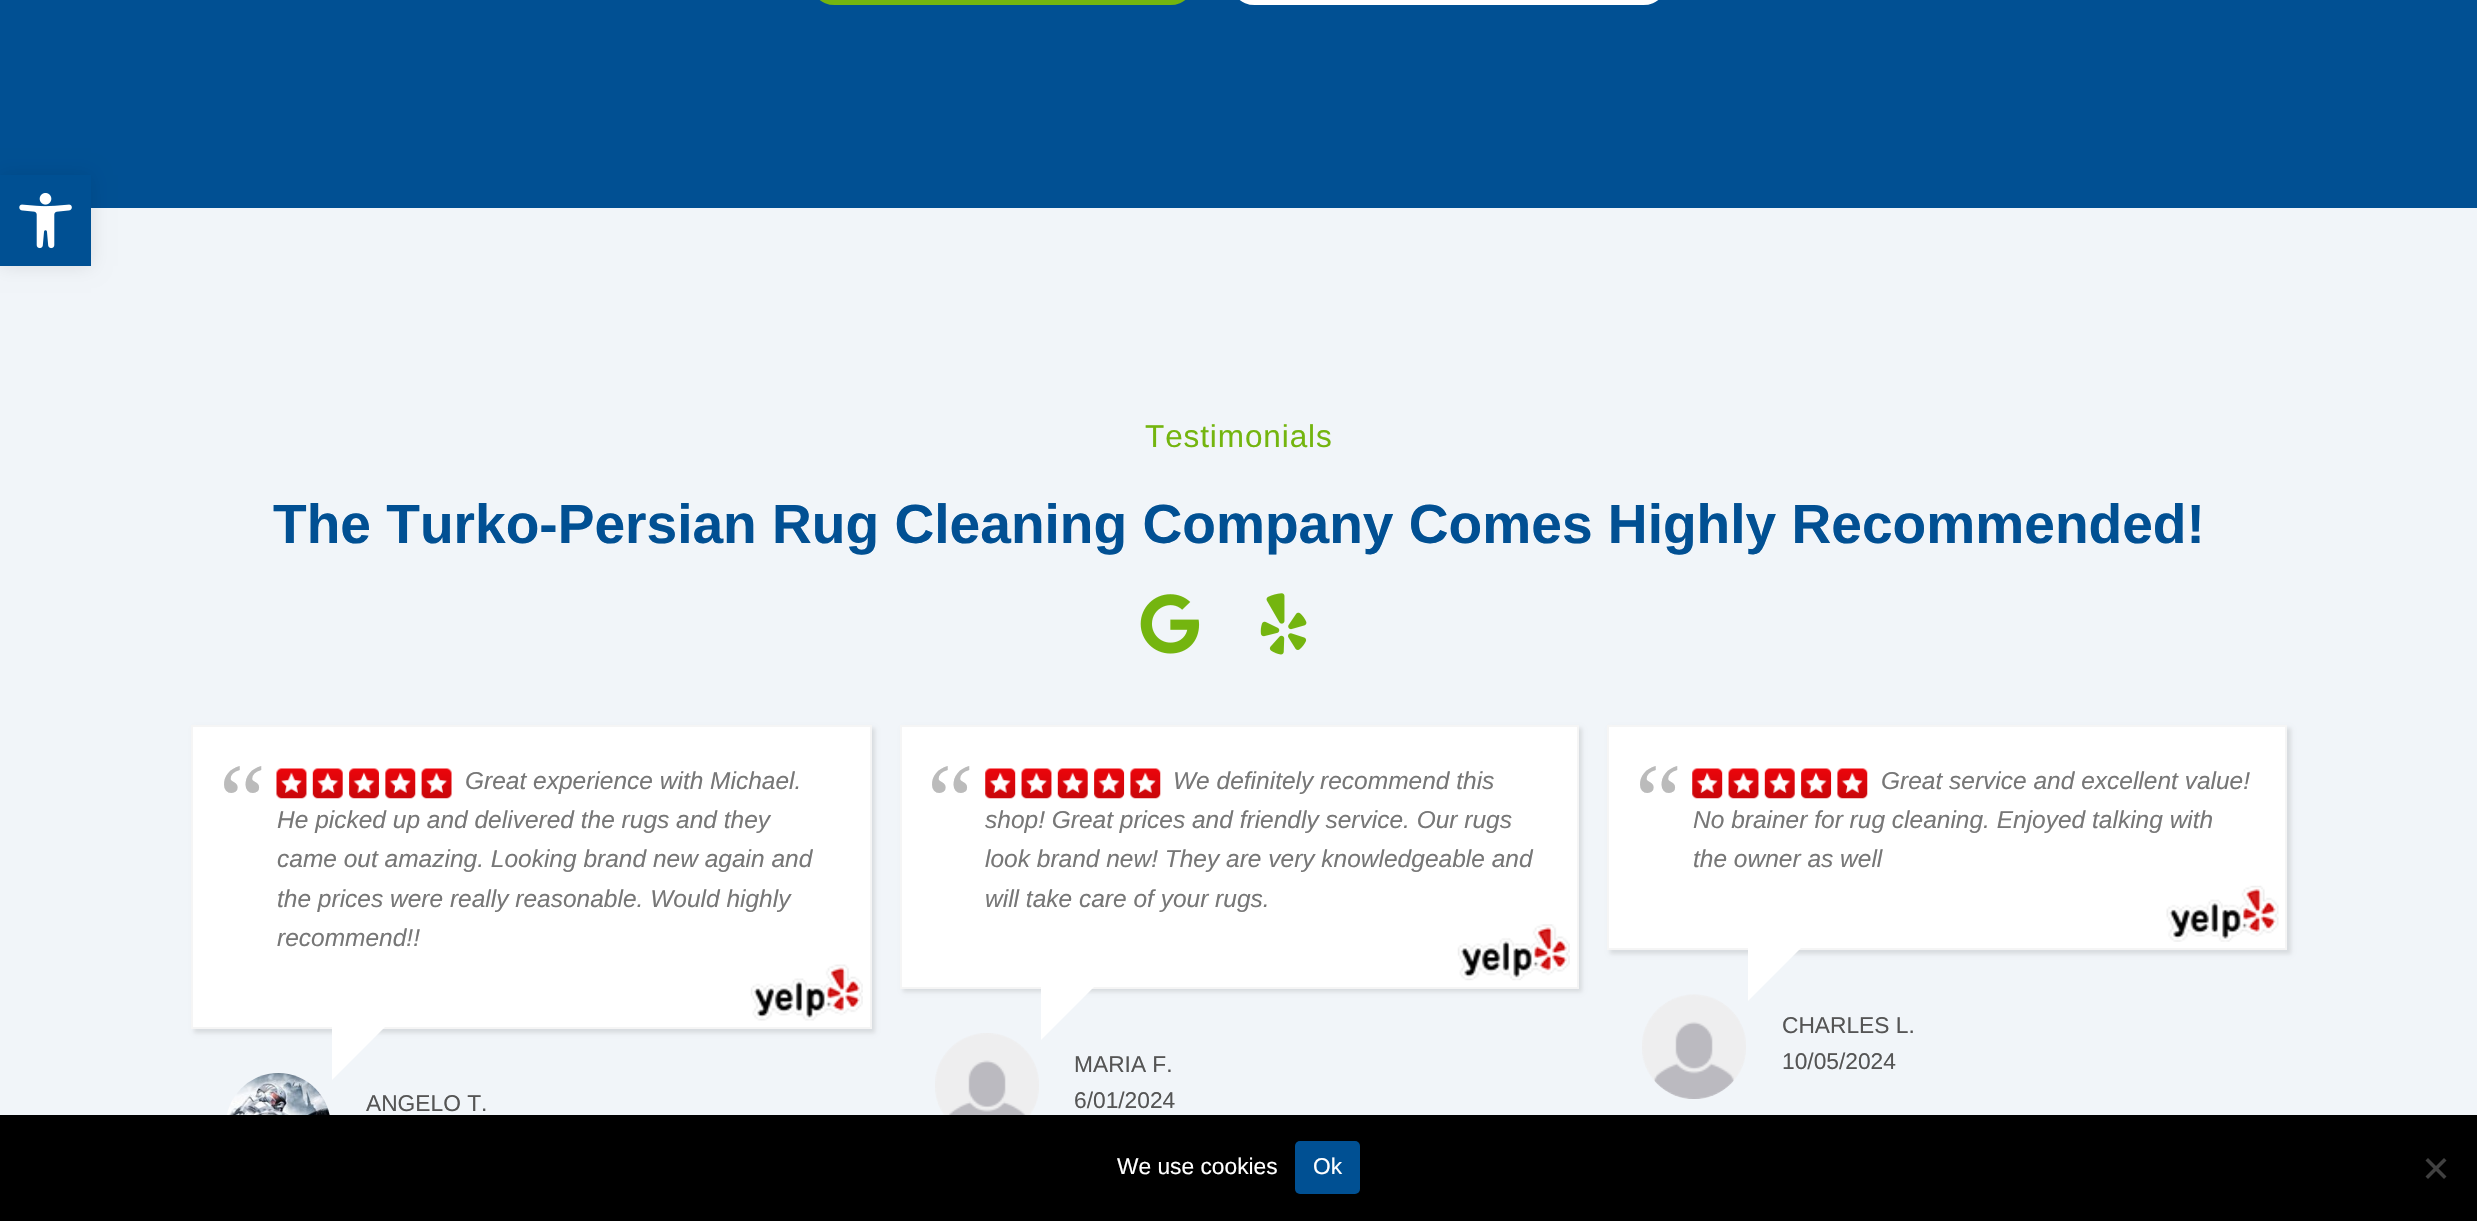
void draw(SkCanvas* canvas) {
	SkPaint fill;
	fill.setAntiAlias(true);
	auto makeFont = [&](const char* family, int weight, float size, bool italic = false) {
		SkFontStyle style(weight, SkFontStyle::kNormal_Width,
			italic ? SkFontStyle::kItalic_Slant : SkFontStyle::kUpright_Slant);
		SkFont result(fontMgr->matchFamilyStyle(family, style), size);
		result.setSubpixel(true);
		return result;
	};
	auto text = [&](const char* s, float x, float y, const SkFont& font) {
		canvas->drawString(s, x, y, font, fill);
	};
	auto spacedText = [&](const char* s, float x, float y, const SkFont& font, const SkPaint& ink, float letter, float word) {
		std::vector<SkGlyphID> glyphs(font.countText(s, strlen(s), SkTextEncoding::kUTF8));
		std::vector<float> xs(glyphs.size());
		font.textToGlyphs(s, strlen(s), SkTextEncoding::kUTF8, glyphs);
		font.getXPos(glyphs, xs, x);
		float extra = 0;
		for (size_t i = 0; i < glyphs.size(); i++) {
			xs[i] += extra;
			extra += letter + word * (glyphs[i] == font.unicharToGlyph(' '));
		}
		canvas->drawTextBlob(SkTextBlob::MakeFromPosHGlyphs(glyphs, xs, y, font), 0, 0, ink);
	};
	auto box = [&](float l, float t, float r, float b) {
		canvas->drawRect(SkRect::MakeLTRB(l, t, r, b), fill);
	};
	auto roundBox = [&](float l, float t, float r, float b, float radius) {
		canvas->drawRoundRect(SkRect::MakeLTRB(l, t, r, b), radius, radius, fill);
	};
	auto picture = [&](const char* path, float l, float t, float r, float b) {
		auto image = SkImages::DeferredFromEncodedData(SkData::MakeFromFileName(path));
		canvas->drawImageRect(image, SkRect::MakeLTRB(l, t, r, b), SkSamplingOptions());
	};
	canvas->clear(0xFF015093);
	fill.setColor(0xFFF1F5F9);
	box(0, 208, 2477, 1115);
	fill.setColor(0x1A000000);
	fill.setMaskFilter(SkMaskFilter::MakeBlur(kNormal_SkBlurStyle, 9));
	canvas->drawRect(SkRect::MakeLTRB(0, 175, 91, 266), fill);
	fill.setMaskFilter(nullptr);
	fill.setColor(0xFF005093);
	box(0, 175, 91, 266);
	picture("image0.png", 19, 193, 72, 249);
	fill.setColor(0xFF74B50F);
	roundBox(810, -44, 1195, 5, 43.5f);
	fill.setColor(0xFFFFFFFF);
	roundBox(1230, -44, 1668, 5, 43.5f);
	picture("image1.png", 1140, 594, 1200, 654);
	picture("image2.png", 1260, 593, 1307, 655);
	fill.setColor(0x1A000000);
	fill.setMaskFilter(SkMaskFilter::MakeBlur(kNormal_SkBlurStyle, 2));
	canvas->drawRect(SkRect::MakeLTRB(194, 728, 875, 1033), fill);
	fill.setMaskFilter(nullptr);
	fill.setColor(0xFFFFFFFF);
	canvas->drawRect(SkRect::MakeLTRB(192, 726, 871, 1028), fill);
	fill.setStyle(SkPaint::kStroke_Style);
	fill.setStrokeWidth(2);
	fill.setColor(0xFFF5F5F5);
	canvas->drawRect(SkRect::MakeLTRB(192, 726, 871, 1028), fill);
	picture("image3.png", 276, 768, 452, 799);
	picture("image4.png", 750, 964, 863, 1021);
	fill.setStyle(SkPaint::kFill_Style);
	fill.setColor(0xFFFFFFFF);
	canvas->drawPath(SkPathBuilder().moveTo(332, 1027).lineTo(385, 1027).lineTo(332, 1080).close().detach(), fill);
	picture("image5.png", 226, 1073, 330, 1115);
	fill.setColor(0x1A000000);
	fill.setMaskFilter(SkMaskFilter::MakeBlur(kNormal_SkBlurStyle, 2));
	canvas->drawRect(SkRect::MakeLTRB(903, 728, 1582, 992), fill);
	fill.setMaskFilter(nullptr);
	fill.setColor(0xFFFFFFFF);
	canvas->drawRect(SkRect::MakeLTRB(901, 726, 1578, 988), fill);
	fill.setStyle(SkPaint::kStroke_Style);
	fill.setColor(0xFFF5F5F5);
	canvas->drawRect(SkRect::MakeLTRB(901, 726, 1578, 988), fill);
	picture("image6.png", 985, 768, 1161, 799);
	picture("image7.png", 1457, 924, 1570, 981);
	fill.setStyle(SkPaint::kFill_Style);
	fill.setColor(0xFFFFFFFF);
	canvas->drawPath(SkPathBuilder().moveTo(1041, 987).lineTo(1094, 987).lineTo(1041, 1040).close().detach(), fill);
	picture("image8.png", 935, 1033, 1039, 1115);
	fill.setColor(0x1A000000);
	fill.setMaskFilter(SkMaskFilter::MakeBlur(kNormal_SkBlurStyle, 2));
	canvas->drawRect(SkRect::MakeLTRB(1610, 728, 2291, 954), fill);
	fill.setMaskFilter(nullptr);
	fill.setColor(0xFFFFFFFF);
	canvas->drawRect(SkRect::MakeLTRB(1608, 726, 2286, 949), fill);
	fill.setStyle(SkPaint::kStroke_Style);
	fill.setColor(0xFFF5F5F5);
	canvas->drawRect(SkRect::MakeLTRB(1608, 726, 2286, 949), fill);
	picture("image6.png", 1692, 768, 1868, 799);
	picture("image9.png", 2166, 885, 2279, 942);
	fill.setStyle(SkPaint::kFill_Style);
	fill.setColor(0xFFFFFFFF);
	canvas->drawPath(SkPathBuilder().moveTo(1748, 948).lineTo(1801, 948).lineTo(1748, 1001).close().detach(), fill);
	picture("image10.png", 1642, 994, 1746, 1099);
	fill.setColor(0xFF000000);
	box(0, 1115, 2477, 1221);
	fill.setColor(0xFF005093);
	roundBox(1295, 1141, 1360, 1194, 5);
	fill.setColor(0xFF404040);
	canvas->drawPath(SkPathBuilder().moveTo(2444, 1158).lineTo(2446.5f, 1160.5f).lineTo(2428, 1179).lineTo(2425.5f, 1176.5f).close().detach(), fill);
	canvas->drawPath(SkPathBuilder().moveTo(2425.5f, 1160.5f).lineTo(2428, 1158).lineTo(2446.5f, 1176.5f).lineTo(2444, 1179).close().detach(), fill);
	auto font1 = makeFont("Liberation Sans", 400, 31.5f);
	fill.setColor(0xFF74B50F);
	spacedText("Testimonials", 1145, 447, font1, fill, 0.9f, 0);
	auto font2 = makeFont("Liberation Sans", 700, 55.1f);
	fill.setColor(0xFF015093);
	text("The Turko-Persian Rug Cleaning Company Comes Highly Recommended!", 273, 543, font2);
	auto font3 = makeFont("Liberation Serif", 400, 105);
	fill.setColor(0xFFBBBBBB);
	text("“", 219, 836, font3);
	auto font4 = makeFont("Liberation Sans", 400, 24.5f, true);
	fill.setColor(0xFF777777);
	text("Great experience with Michael.", 465, 789, font4);
	text("He picked up and delivered the rugs and they", 277, 828, font4);
	text("came out amazing. Looking brand new again and", 277, 867, font4);
	text("the prices were really reasonable. Would highly", 277, 907, font4);
	text("recommend!!", 277, 946, font4);
	auto font5 = makeFont("Liberation Sans", 400, 22.75f);
	fill.setColor(0xFF555555);
	text("ANGELO T.", 366, 1111, font5);
	fill.setColor(0xFFBBBBBB);
	text("“", 927, 836, font3);
	fill.setColor(0xFF777777);
	text("We definitely recommend this", 1173, 789, font4);
	text("shop! Great prices and friendly service. Our rugs", 985, 828, font4);
	text("look brand new! They are very knowledgeable and", 985, 867, font4);
	text("will take care of your rugs.", 985, 907, font4);
	fill.setColor(0xFF555555);
	text("MARIA F.", 1074, 1072, font5);
	text("6/01/2024", 1074, 1108, font5);
	fill.setColor(0xFFBBBBBB);
	text("“", 1635, 836, font3);
	fill.setColor(0xFF777777);
	text("Great service and excellent value!", 1881, 789, font4);
	text("No brainer for rug cleaning. Enjoyed talking with", 1693, 828, font4);
	text("the owner as well", 1693, 867, font4);
	fill.setColor(0xFF555555);
	text("CHARLES L.", 1782, 1033, font5);
	text("10/05/2024", 1782, 1069, font5);
	fill.setColor(0xFFFFFFFF);
	text("We use cookies", 1117, 1174, font5);
	text("Ok", 1313, 1174, font5);
}
